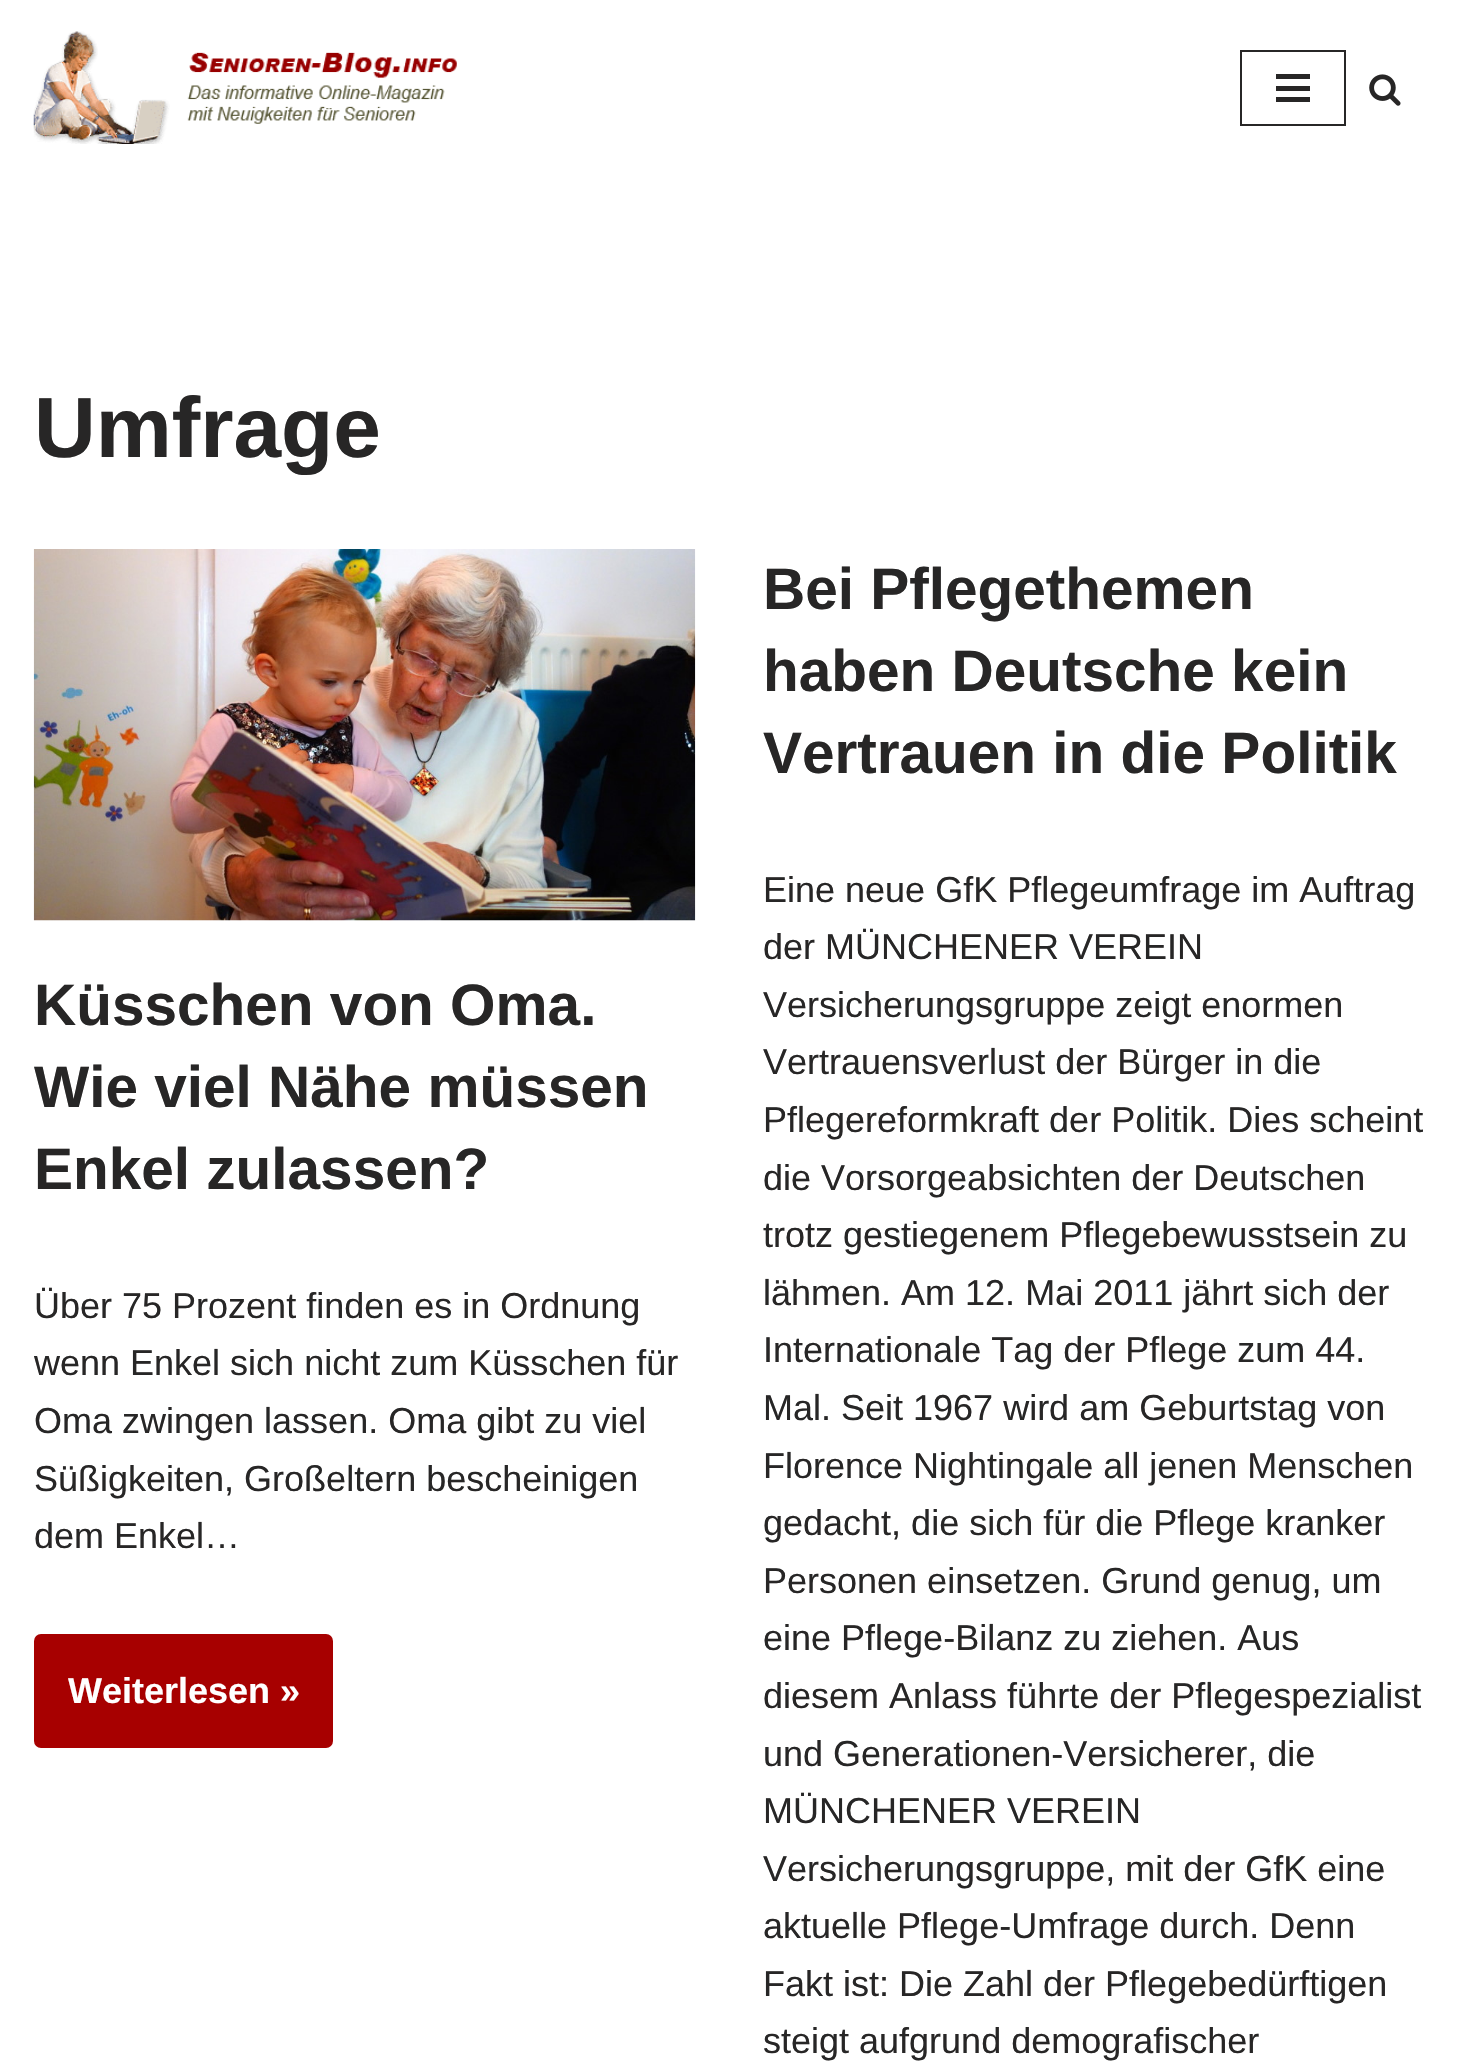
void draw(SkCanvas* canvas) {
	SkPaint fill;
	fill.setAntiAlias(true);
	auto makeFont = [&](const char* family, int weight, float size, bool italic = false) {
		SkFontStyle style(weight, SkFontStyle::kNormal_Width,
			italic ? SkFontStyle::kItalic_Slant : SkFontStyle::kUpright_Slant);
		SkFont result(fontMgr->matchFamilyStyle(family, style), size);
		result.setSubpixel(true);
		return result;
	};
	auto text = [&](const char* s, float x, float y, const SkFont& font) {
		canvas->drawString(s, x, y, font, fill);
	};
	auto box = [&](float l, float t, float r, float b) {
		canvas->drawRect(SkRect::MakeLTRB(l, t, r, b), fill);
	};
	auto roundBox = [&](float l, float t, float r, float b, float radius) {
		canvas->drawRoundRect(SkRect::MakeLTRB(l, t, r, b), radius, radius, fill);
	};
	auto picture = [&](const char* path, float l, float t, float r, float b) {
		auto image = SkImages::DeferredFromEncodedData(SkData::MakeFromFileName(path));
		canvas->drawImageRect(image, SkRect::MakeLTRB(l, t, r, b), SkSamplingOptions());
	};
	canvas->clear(0xFFFFFFFF);
	picture("image0.png", 33, 31, 457, 144);
	fill.setStyle(SkPaint::kStroke_Style);
	fill.setStrokeWidth(2);
	fill.setColor(0xFF272626);
	canvas->drawRect(SkRect::MakeLTRB(1241, 51, 1345, 125), fill);
	fill.setStyle(SkPaint::kFill_Style);
	box(1276, 74, 1310, 79);
	box(1276, 86, 1310, 91);
	box(1276, 97, 1310, 102);
	picture("image1.png", 1369, 74, 1401, 106);
	picture("image2.png", 33, 549, 696, 921);
	fill.setColor(0xFFA70000);
	roundBox(34, 1634, 333, 1748, 7);
	auto font1 = makeFont("Liberation Sans", 700, 85.5f);
	fill.setColor(0xFF272626);
	text("Umfrage", 34, 457, font1);
	auto font2 = makeFont("Liberation Sans", 700, 58.5f);
	text("Küsschen von Oma.", 34, 1025, font2);
	text("Wie viel Nähe müssen", 34, 1107, font2);
	text("Enkel zulassen?", 34, 1189, font2);
	auto font3 = makeFont("Liberation Sans", 400, 36);
	text("Über 75 Prozent finden es in Ordnung", 34, 1318, font3);
	text("wenn Enkel sich nicht zum Küsschen für", 34, 1375, font3);
	text("Oma zwingen lassen. Oma gibt zu viel", 34, 1433, font3);
	text("Süßigkeiten, Großeltern bescheinigen", 34, 1491, font3);
	text("dem Enkel…", 34, 1548, font3);
	auto font4 = makeFont("Liberation Sans", 700, 36);
	fill.setColor(0xFFFFFFFF);
	text("Weiterlesen »", 68, 1703, font4);
	fill.setColor(0xFF272626);
	text("Bei Pflegethemen", 763, 609, font2);
	text("haben Deutsche kein", 763, 691, font2);
	text("Vertrauen in die Politik", 763, 773, font2);
	text("Eine neue GfK Pflegeumfrage im Auftrag", 763, 902, font3);
	text("der MÜNCHENER VEREIN", 763, 959, font3);
	text("Versicherungsgruppe zeigt enormen", 763, 1017, font3);
	text("Vertrauensverlust der Bürger in die", 763, 1074, font3);
	text("Pflegereformkraft der Politik. Dies scheint", 763, 1132, font3);
	text("die Vorsorgeabsichten der Deutschen", 763, 1190, font3);
	text("trotz gestiegenem Pflegebewusstsein zu", 763, 1247, font3);
	text("lähmen. Am 12. Mai 2011 jährt sich der", 763, 1305, font3);
	text("Internationale Tag der Pflege zum 44.", 763, 1362, font3);
	text("Mal. Seit 1967 wird am Geburtstag von", 763, 1420, font3);
	text("Florence Nightingale all jenen Menschen", 763, 1478, font3);
	text("gedacht, die sich für die Pflege kranker", 763, 1535, font3);
	text("Personen einsetzen. Grund genug, um", 763, 1593, font3);
	text("eine Pflege-Bilanz zu ziehen. Aus", 763, 1650, font3);
	text("diesem Anlass führte der Pflegespezialist", 763, 1708, font3);
	text("und Generationen-Versicherer, die", 763, 1766, font3);
	text("MÜNCHENER VEREIN", 763, 1823, font3);
	text("Versicherungsgruppe, mit der GfK eine", 763, 1881, font3);
	text("aktuelle Pflege-Umfrage durch. Denn", 763, 1938, font3);
	text("Fakt ist: Die Zahl der Pflegebedürftigen", 763, 1996, font3);
	text("steigt aufgrund demografischer", 763, 2053, font3);
}
